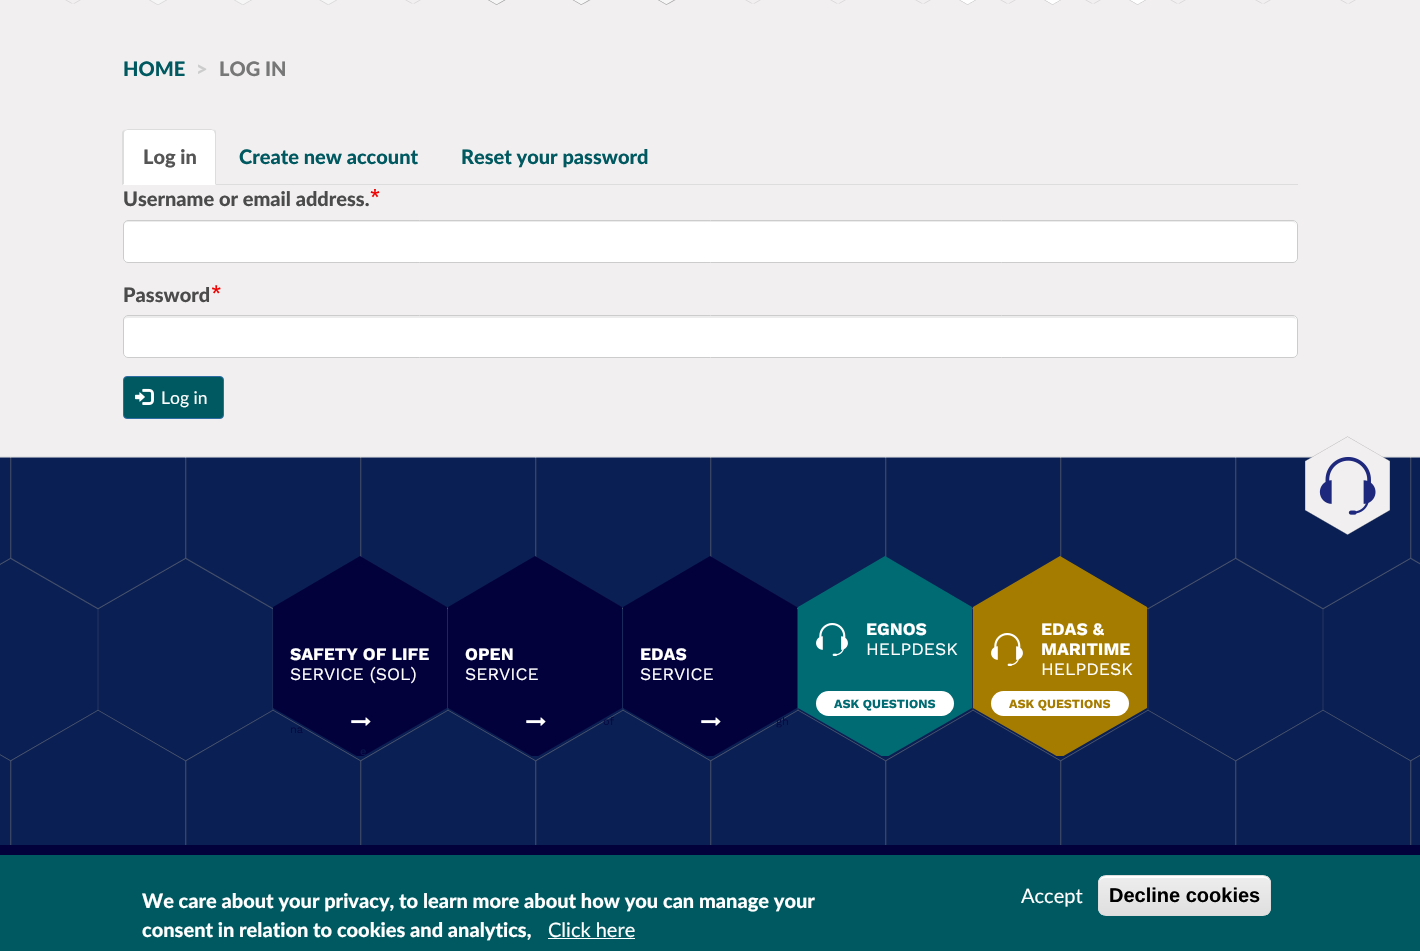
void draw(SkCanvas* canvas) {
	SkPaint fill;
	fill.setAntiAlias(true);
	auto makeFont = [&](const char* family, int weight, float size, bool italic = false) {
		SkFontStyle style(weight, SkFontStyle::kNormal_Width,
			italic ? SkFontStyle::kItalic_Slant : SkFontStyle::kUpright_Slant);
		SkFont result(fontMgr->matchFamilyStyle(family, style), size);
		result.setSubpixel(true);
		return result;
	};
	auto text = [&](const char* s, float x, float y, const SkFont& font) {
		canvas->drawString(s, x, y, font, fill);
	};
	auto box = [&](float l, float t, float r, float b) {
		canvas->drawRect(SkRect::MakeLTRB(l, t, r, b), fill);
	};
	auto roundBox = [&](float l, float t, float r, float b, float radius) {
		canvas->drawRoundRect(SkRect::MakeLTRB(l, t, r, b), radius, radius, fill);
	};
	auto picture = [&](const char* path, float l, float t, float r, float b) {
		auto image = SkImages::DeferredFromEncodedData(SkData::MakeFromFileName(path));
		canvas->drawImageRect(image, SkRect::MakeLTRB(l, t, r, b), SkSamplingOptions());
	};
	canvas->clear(0xFFF1EFEF);
	picture("image0.png", 65, 0, 1356, 4);
	picture("image1.png", 149, 0, 337, 5);
	picture("image2.png", 488, 0, 675, 5);
	picture("image3.png", 959, 0, 976, 5);
	picture("image3.png", 1044, 0, 1061, 5);
	picture("image3.png", 1129, 0, 1146, 5);
	fill.setColor(0xFFDDDDDD);
	box(216, 184, 1298, 185);
	fill.setColor(0xFFFFFFFF);
	canvas->drawPath(SkPathBuilder().moveTo(128, 129).lineTo(211, 129).cubicTo(214, 129, 216, 131, 216, 134).lineTo(216, 185).lineTo(123, 185).lineTo(123, 134).cubicTo(123, 131, 125, 129, 128, 129).close().detach(), fill);
	fill.setColor(0xFFDDDDDD);
	canvas->drawPath(SkPathBuilder().moveTo(128, 129).lineTo(124, 130).lineTo(125, 131).cubicTo(126, 130, 127, 130, 128, 130).lineTo(211, 130).cubicTo(212, 130, 213, 130, 214, 131).lineTo(215, 130).cubicTo(214, 130, 212, 129, 211, 129).close().detach(), fill);
	canvas->drawPath(SkPathBuilder().moveTo(216, 185).lineTo(216, 134).cubicTo(216, 132, 216, 131, 215, 130).lineTo(214, 131).lineTo(215, 134).lineTo(215, 184).close().detach(), fill);
	canvas->drawPath(SkPathBuilder().moveTo(122, 185).lineTo(124, 184).lineTo(124, 134).cubicTo(124, 133, 124, 132, 125, 131).lineTo(124, 130).lineTo(122, 132).close().detach(), fill);
	picture("image4.png", 370, 189, 380, 198);
	fill.setColor(0xFFFFFFFF);
	roundBox(123, 220, 1298, 263, 5);
	fill.setColor(0xFFECECEC);
	canvas->drawPath(SkPathBuilder().moveTo(128, 222).lineTo(1292, 222).cubicTo(1295, 222, 1296, 224, 1296, 226).cubicTo(1296, 223, 1295, 221, 1292, 221).lineTo(128, 221).cubicTo(125, 221, 124, 223, 124, 226).cubicTo(124, 224, 125, 222, 128, 222).close().detach(), fill);
	fill.setStyle(SkPaint::kStroke_Style);
	fill.setStrokeWidth(1);
	fill.setColor(0xFFCCCCCC);
	canvas->drawRoundRect(SkRect::MakeLTRB(123.5f, 220.5f, 1297.5f, 262.5f), 4.5f, 4.5f, fill);
	picture("image5.png", 212, 285, 221, 294);
	fill.setStyle(SkPaint::kFill_Style);
	fill.setColor(0xFFFFFFFF);
	roundBox(123, 315, 1298, 358, 5);
	fill.setColor(0xFFECECEC);
	canvas->drawPath(SkPathBuilder().moveTo(128, 318).lineTo(1292, 318).cubicTo(1295, 318, 1296, 319, 1296, 321).cubicTo(1296, 318, 1295, 316, 1292, 316).lineTo(128, 316).cubicTo(125, 316, 124, 318, 124, 321).cubicTo(124, 319, 125, 318, 128, 318).close().detach(), fill);
	fill.setStyle(SkPaint::kStroke_Style);
	fill.setColor(0xFFCCCCCC);
	canvas->drawRoundRect(SkRect::MakeLTRB(123.5f, 315.5f, 1297.5f, 357.5f), 4.5f, 4.5f, fill);
	fill.setStyle(SkPaint::kFill_Style);
	fill.setColor(0xFF005960);
	canvas->drawRoundRect(SkRect::MakeLTRB(123.5f, 376.5f, 223.5f, 418.5f), 3.5f, 3.5f, fill);
	fill.setStyle(SkPaint::kStroke_Style);
	fill.setColor(0xFF2E6DA4);
	canvas->drawRoundRect(SkRect::MakeLTRB(123.5f, 376.5f, 223.5f, 418.5f), 3.5f, 3.5f, fill);
	picture("image6.png", 135, 388, 154, 405);
	fill.setStyle(SkPaint::kFill_Style);
	fill.setColor(0xFFE5E5E5);
	box(0, 456, 1420, 457);
	fill.setColor(0xFF0A1F54);
	box(0, 458, 1420, 845);
	picture("image7.png", 0, 457, 1420, 845);
	canvas->save();
	canvas->clipRect(SkRect::MakeLTRB(273, 556, 448, 756));
	fill.setColor(0xFF03013C);
	canvas->drawPath(SkPathBuilder().moveTo(447, 607).lineTo(360, 556).lineTo(273, 607).lineTo(273, 708).lineTo(360, 758).lineTo(447, 708).close().detach(), fill);
	canvas->restore();
	picture("image8.png", 351, 717, 371, 726);
	canvas->save();
	canvas->clipRect(SkRect::MakeLTRB(448, 556, 623, 756));
	canvas->drawPath(SkPathBuilder().moveTo(622, 607).lineTo(535, 556).lineTo(448, 607).lineTo(448, 708).lineTo(535, 758).lineTo(622, 708).close().detach(), fill);
	canvas->restore();
	picture("image9.png", 526, 717, 546, 726);
	canvas->save();
	canvas->clipRect(SkRect::MakeLTRB(623, 556, 798, 756));
	canvas->drawPath(SkPathBuilder().moveTo(797, 607).lineTo(710, 556).lineTo(623, 607).lineTo(623, 708).lineTo(710, 758).lineTo(797, 708).close().detach(), fill);
	canvas->restore();
	picture("image10.png", 701, 717, 721, 726);
	canvas->save();
	canvas->clipRect(SkRect::MakeLTRB(798, 556, 973, 756));
	fill.setColor(0xFF006B73);
	canvas->drawPath(SkPathBuilder().moveTo(972, 607).lineTo(885, 556).lineTo(798, 607).lineTo(798, 708).lineTo(885, 758).lineTo(972, 708).close().detach(), fill);
	canvas->restore();
	picture("image11.png", 816, 623, 848, 656);
	fill.setColor(0xFFFFFFFF);
	roundBox(816, 691, 954, 716, 12.5f);
	canvas->save();
	canvas->clipRect(SkRect::MakeLTRB(973, 556, 1148, 756));
	fill.setColor(0xFFA67C00);
	canvas->drawPath(SkPathBuilder().moveTo(1147, 607).lineTo(1060, 556).lineTo(973, 607).lineTo(973, 708).lineTo(1060, 758).lineTo(1147, 708).close().detach(), fill);
	canvas->restore();
	picture("image12.png", 991, 633, 1023, 666);
	fill.setColor(0xFFFFFFFF);
	roundBox(991, 691, 1129, 716, 12.5f);
	fill.setColor(0xFF03013C);
	box(0, 845, 1420, 855);
	picture("image13.png", 1305, 436, 1390, 535);
	fill.setColor(0xFF005960);
	box(0, 855, 1420, 951);
	fill.setColor(0xFFFFFFFF);
	box(548, 938, 635, 939);
	canvas->save();
	canvas->clipPath(SkPathBuilder().moveTo(1106, 875).lineTo(1263, 875).cubicTo(1267.5f, 875, 1271, 878.5f, 1271, 883).lineTo(1271, 908).cubicTo(1271, 912.5f, 1267.5f, 916, 1263, 916).lineTo(1106, 916).cubicTo(1101.5f, 916, 1098, 912.5f, 1098, 908).lineTo(1098, 883).cubicTo(1098, 878.5f, 1101.5f, 875, 1106, 875).close().detach(), true);
	{
		const SkColor colors[] = {0xFFEDEDED, 0xFFDFDFDF};
		const float stops[] = {0.05f, 1};
		const SkPoint ends[] = {{1184, 876}, {1184, 915}};
		fill.setShader(SkGradientShader::MakeLinear(ends, colors, stops, 2, SkTileMode::kClamp));
		fill.setAlpha(255);
	}
	box(1098, 876, 1271, 915);
	canvas->restore();
	fill.setShader(nullptr);
	fill.setColor(0xFFFFFFFF);
	canvas->drawPath(SkPathBuilder().moveTo(1105, 878).lineTo(1264, 878).cubicTo(1267, 878, 1270, 880, 1270, 884).lineTo(1270, 882).cubicTo(1270, 879, 1267, 876, 1264, 876).lineTo(1105, 876).cubicTo(1102, 876, 1099, 879, 1099, 882).lineTo(1099, 884).cubicTo(1099, 880, 1102, 878, 1105, 878).close().detach(), fill);
	fill.setStyle(SkPaint::kStroke_Style);
	fill.setColor(0xFFDCDCDC);
	canvas->drawRoundRect(SkRect::MakeLTRB(1098.5f, 875.5f, 1270.5f, 915.5f), 7.5f, 7.5f, fill);
	auto font1 = makeFont("Lato", 900, 20);
	fill.setStyle(SkPaint::kFill_Style);
	fill.setColor(0xFF005960);
	text("HOME", 123, 76, font1);
	fill.setColor(0xFFCCCCCC);
	text(">", 196, 76, font1);
	fill.setColor(0xFF777777);
	text("LOG IN", 219, 76, font1);
	fill.setColor(0xFF555555);
	text("Log in", 143, 164, font1);
	fill.setColor(0xFF005960);
	text("Create new account", 239, 164, font1);
	text("Reset your password", 461, 164, font1);
	fill.setColor(0xFF4B4B4C);
	text("Username or email address.", 123, 206, font1);
	text("Password", 123, 302, font1);
	auto font2 = makeFont("Lato", 400, 17.5f);
	fill.setColor(0xFFFFFFFF);
	text("Log in", 161, 404, font2);
	auto font3 = makeFont("Work Sans", 700, 17.5f);
	text("SAFETY OF LIFE", 290, 660, font3);
	auto font4 = makeFont("Work Sans", 400, 17.5f);
	text("SERVICE (SOL)", 290, 680, font4);
	auto font5 = makeFont("Work Sans", 400, 11);
	fill.setColor(0xFF060841);
	text("na", 290, 733, font5);
	fill.setColor(0xFF09184E);
	text("e", 360, 755, font5);
	fill.setColor(0xFFFFFFFF);
	text("OPEN", 465, 660, font3);
	text("SERVICE", 465, 680, font4);
	fill.setColor(0xFF060841);
	text("of", 603, 725, font5);
	fill.setColor(0xFFFFFFFF);
	text("EDAS", 640, 660, font3);
	text("SERVICE", 640, 680, font4);
	fill.setColor(0xFF060841);
	text("gh", 776, 725, font5);
	fill.setColor(0xFFFFFFFF);
	text("EGNOS", 866, 635, font3);
	text("HELPDESK", 866, 655, font4);
	auto font6 = makeFont("Work Sans", 700, 12.5f);
	fill.setColor(0xFF006B73);
	text("ASK QUESTIONS", 834, 708, font6);
	fill.setColor(0xFFFFFFFF);
	text("EDAS &", 1041, 635, font3);
	text("MARITIME", 1041, 655, font3);
	text("HELPDESK", 1041, 675, font4);
	fill.setColor(0xFFA67C00);
	text("ASK QUESTIONS", 1009, 708, font6);
	fill.setColor(0xFFFFFFFF);
	text("We care about your privacy, to learn more about how you can manage your", 142, 908, font1);
	text("consent in relation to cookies and analytics,", 142, 937, font1);
	auto font7 = makeFont("Lato", 400, 20);
	text("Click here", 548, 937, font7);
	text("Accept", 1021, 903, font7);
	auto font8 = makeFont("Liberation Sans", 700, 20);
	fill.setColor(0xFF000000);
	text("Decline cookies", 1109, 902, font8);
}
